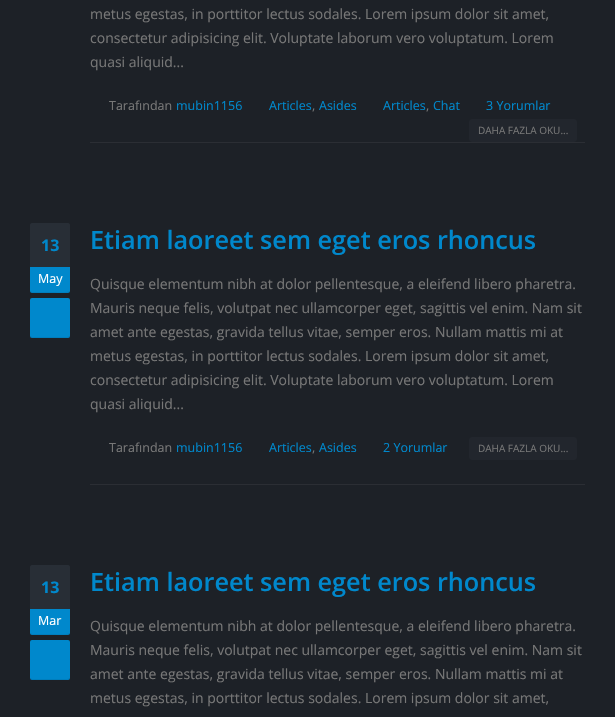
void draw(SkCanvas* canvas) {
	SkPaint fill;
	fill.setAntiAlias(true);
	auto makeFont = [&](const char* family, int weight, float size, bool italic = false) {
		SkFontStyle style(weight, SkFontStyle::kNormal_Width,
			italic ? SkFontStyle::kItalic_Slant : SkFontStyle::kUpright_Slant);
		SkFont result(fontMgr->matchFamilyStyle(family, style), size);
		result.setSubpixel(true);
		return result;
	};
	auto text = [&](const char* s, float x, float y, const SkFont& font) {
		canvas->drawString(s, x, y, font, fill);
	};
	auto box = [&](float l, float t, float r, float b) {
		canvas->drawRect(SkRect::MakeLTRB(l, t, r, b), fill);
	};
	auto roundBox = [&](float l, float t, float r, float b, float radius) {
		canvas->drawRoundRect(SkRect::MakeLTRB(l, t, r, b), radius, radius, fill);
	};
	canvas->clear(0xFF1D2127);
	fill.setColor(0xFF2B2E34);
	box(90, 142, 585, 143);
	fill.setColor(0xFF22262D);
	roundBox(469, 119, 577, 142, 4);
	fill.setColor(0xFF2B2E34);
	box(90, 484, 585, 485);
	fill.setColor(0xFF282E36);
	canvas->drawPath(SkPathBuilder().moveTo(32, 223).lineTo(68, 223).cubicTo(69, 223, 70, 224, 70, 225).lineTo(70, 267).lineTo(30, 267).lineTo(30, 225).cubicTo(30, 224, 31, 223, 32, 223).close().detach(), fill);
	fill.setColor(0xFF0088CC);
	canvas->drawPath(SkPathBuilder().moveTo(30, 267).lineTo(70, 267).lineTo(70, 291).cubicTo(70, 292, 69, 293, 68, 293).lineTo(32, 293).cubicTo(31, 293, 30, 292, 30, 291).close().detach(), fill);
	fill.setColor(0x12000000);
	canvas->drawPath(SkPathBuilder().moveTo(30, 290).cubicTo(30, 294, 34, 293, 38, 293).lineTo(69, 293).lineTo(70, 291).cubicTo(66, 293, 58, 292, 53, 292).lineTo(34, 292).cubicTo(33, 292, 30, 292, 30, 290).close().detach(), fill);
	fill.setColor(0xFF0088CC);
	roundBox(30, 298, 70, 338, 2);
	fill.setColor(0x12000000);
	canvas->drawPath(SkPathBuilder().moveTo(30, 336).cubicTo(30, 339, 36, 338, 38, 338).lineTo(62, 338).cubicTo(65, 338, 70, 339, 70, 335).lineTo(70, 336).lineTo(67, 337).lineTo(32, 337).close().detach(), fill);
	fill.setColor(0xFF22262D);
	roundBox(469, 437, 577, 460, 4);
	fill.setColor(0xFF282E36);
	canvas->drawPath(SkPathBuilder().moveTo(32, 565).lineTo(68, 565).cubicTo(69, 565, 70, 566, 70, 567).lineTo(70, 609).lineTo(30, 609).lineTo(30, 567).cubicTo(30, 566, 31, 565, 32, 565).close().detach(), fill);
	fill.setColor(0xFF0088CC);
	canvas->drawPath(SkPathBuilder().moveTo(30, 609).lineTo(70, 609).lineTo(70, 633).cubicTo(70, 634, 69, 635, 68, 635).lineTo(32, 635).cubicTo(31, 635, 30, 634, 30, 633).close().detach(), fill);
	fill.setColor(0x12000000);
	canvas->drawPath(SkPathBuilder().moveTo(30, 632).cubicTo(30, 636, 34, 635, 38, 635).lineTo(69, 635).lineTo(70, 633).cubicTo(66, 635, 58, 634, 53, 634).lineTo(34, 634).cubicTo(33, 634, 30, 634, 30, 632).close().detach(), fill);
	fill.setColor(0xFF0088CC);
	roundBox(30, 640, 70, 680, 2);
	fill.setColor(0x12000000);
	canvas->drawPath(SkPathBuilder().moveTo(30, 678).cubicTo(30, 681, 36, 680, 38, 680).lineTo(62, 680).cubicTo(65, 680, 70, 681, 70, 677).lineTo(70, 678).lineTo(67, 679).lineTo(32, 679).close().detach(), fill);
	auto font1 = makeFont("Open Sans", 400, 14);
	fill.setColor(0xFF777777);
	text("metus egestas, in porttitor lectus sodales. Lorem ipsum dolor sit amet,", 90, 19, font1);
	text("consectetur adipisicing elit. Voluptate laborum vero voluptatum. Lorem", 90, 43, font1);
	text("quasi aliquid...", 90, 67, font1);
	auto font2 = makeFont("Open Sans", 400, 12.5f);
	text("Tarafından", 109, 110, font2);
	fill.setColor(0xFF0088CC);
	text("mubin1156", 176, 110, font2);
	text("Articles", 269, 110, font2);
	fill.setColor(0xFF777777);
	text(",", 312, 110, font2);
	fill.setColor(0xFF0088CC);
	text("Asides", 319, 110, font2);
	text("Articles", 383, 110, font2);
	fill.setColor(0xFF777777);
	text(",", 426, 110, font2);
	fill.setColor(0xFF0088CC);
	text("Chat", 433, 110, font2);
	text("3 Yorumlar", 486, 110, font2);
	auto font3 = makeFont("Open Sans", 400, 10);
	fill.setColor(0xFF777777);
	text("DAHA FAZLA OKU...", 478, 134, font3);
	auto font4 = makeFont("Open Sans", 700, 16);
	fill.setColor(0xFF0088CC);
	text("13", 41, 251, font4);
	fill.setColor(0xFFFFFFFF);
	text("May", 38, 283, font2);
	auto font5 = makeFont("Open Sans", 600, 25.25f);
	fill.setColor(0xFF0088CC);
	text("Etiam laoreet sem eget eros rhoncus", 90, 249, font5);
	fill.setColor(0xFF777777);
	text("Quisque elementum nibh at dolor pellentesque, a eleifend libero pharetra.", 90, 289, font1);
	text("Mauris neque felis, volutpat nec ullamcorper eget, sagittis vel enim. Nam sit", 90, 313, font1);
	text("amet ante egestas, gravida tellus vitae, semper eros. Nullam mattis mi at", 90, 337, font1);
	text("metus egestas, in porttitor lectus sodales. Lorem ipsum dolor sit amet,", 90, 361, font1);
	text("consectetur adipisicing elit. Voluptate laborum vero voluptatum. Lorem", 90, 385, font1);
	text("quasi aliquid...", 90, 409, font1);
	text("Tarafından", 109, 452, font2);
	fill.setColor(0xFF0088CC);
	text("mubin1156", 176, 452, font2);
	text("Articles", 269, 452, font2);
	fill.setColor(0xFF777777);
	text(",", 312, 452, font2);
	fill.setColor(0xFF0088CC);
	text("Asides", 319, 452, font2);
	text("2 Yorumlar", 383, 452, font2);
	fill.setColor(0xFF777777);
	text("DAHA FAZLA OKU...", 478, 452, font3);
	fill.setColor(0xFF0088CC);
	text("13", 41, 593, font4);
	fill.setColor(0xFFFFFFFF);
	text("Mar", 38, 625, font2);
	fill.setColor(0xFF0088CC);
	text("Etiam laoreet sem eget eros rhoncus", 90, 591, font5);
	fill.setColor(0xFF777777);
	text("Quisque elementum nibh at dolor pellentesque, a eleifend libero pharetra.", 90, 631, font1);
	text("Mauris neque felis, volutpat nec ullamcorper eget, sagittis vel enim. Nam sit", 90, 655, font1);
	text("amet ante egestas, gravida tellus vitae, semper eros. Nullam mattis mi at", 90, 679, font1);
	text("metus egestas, in porttitor lectus sodales. Lorem ipsum dolor sit amet,", 90, 703, font1);
}
